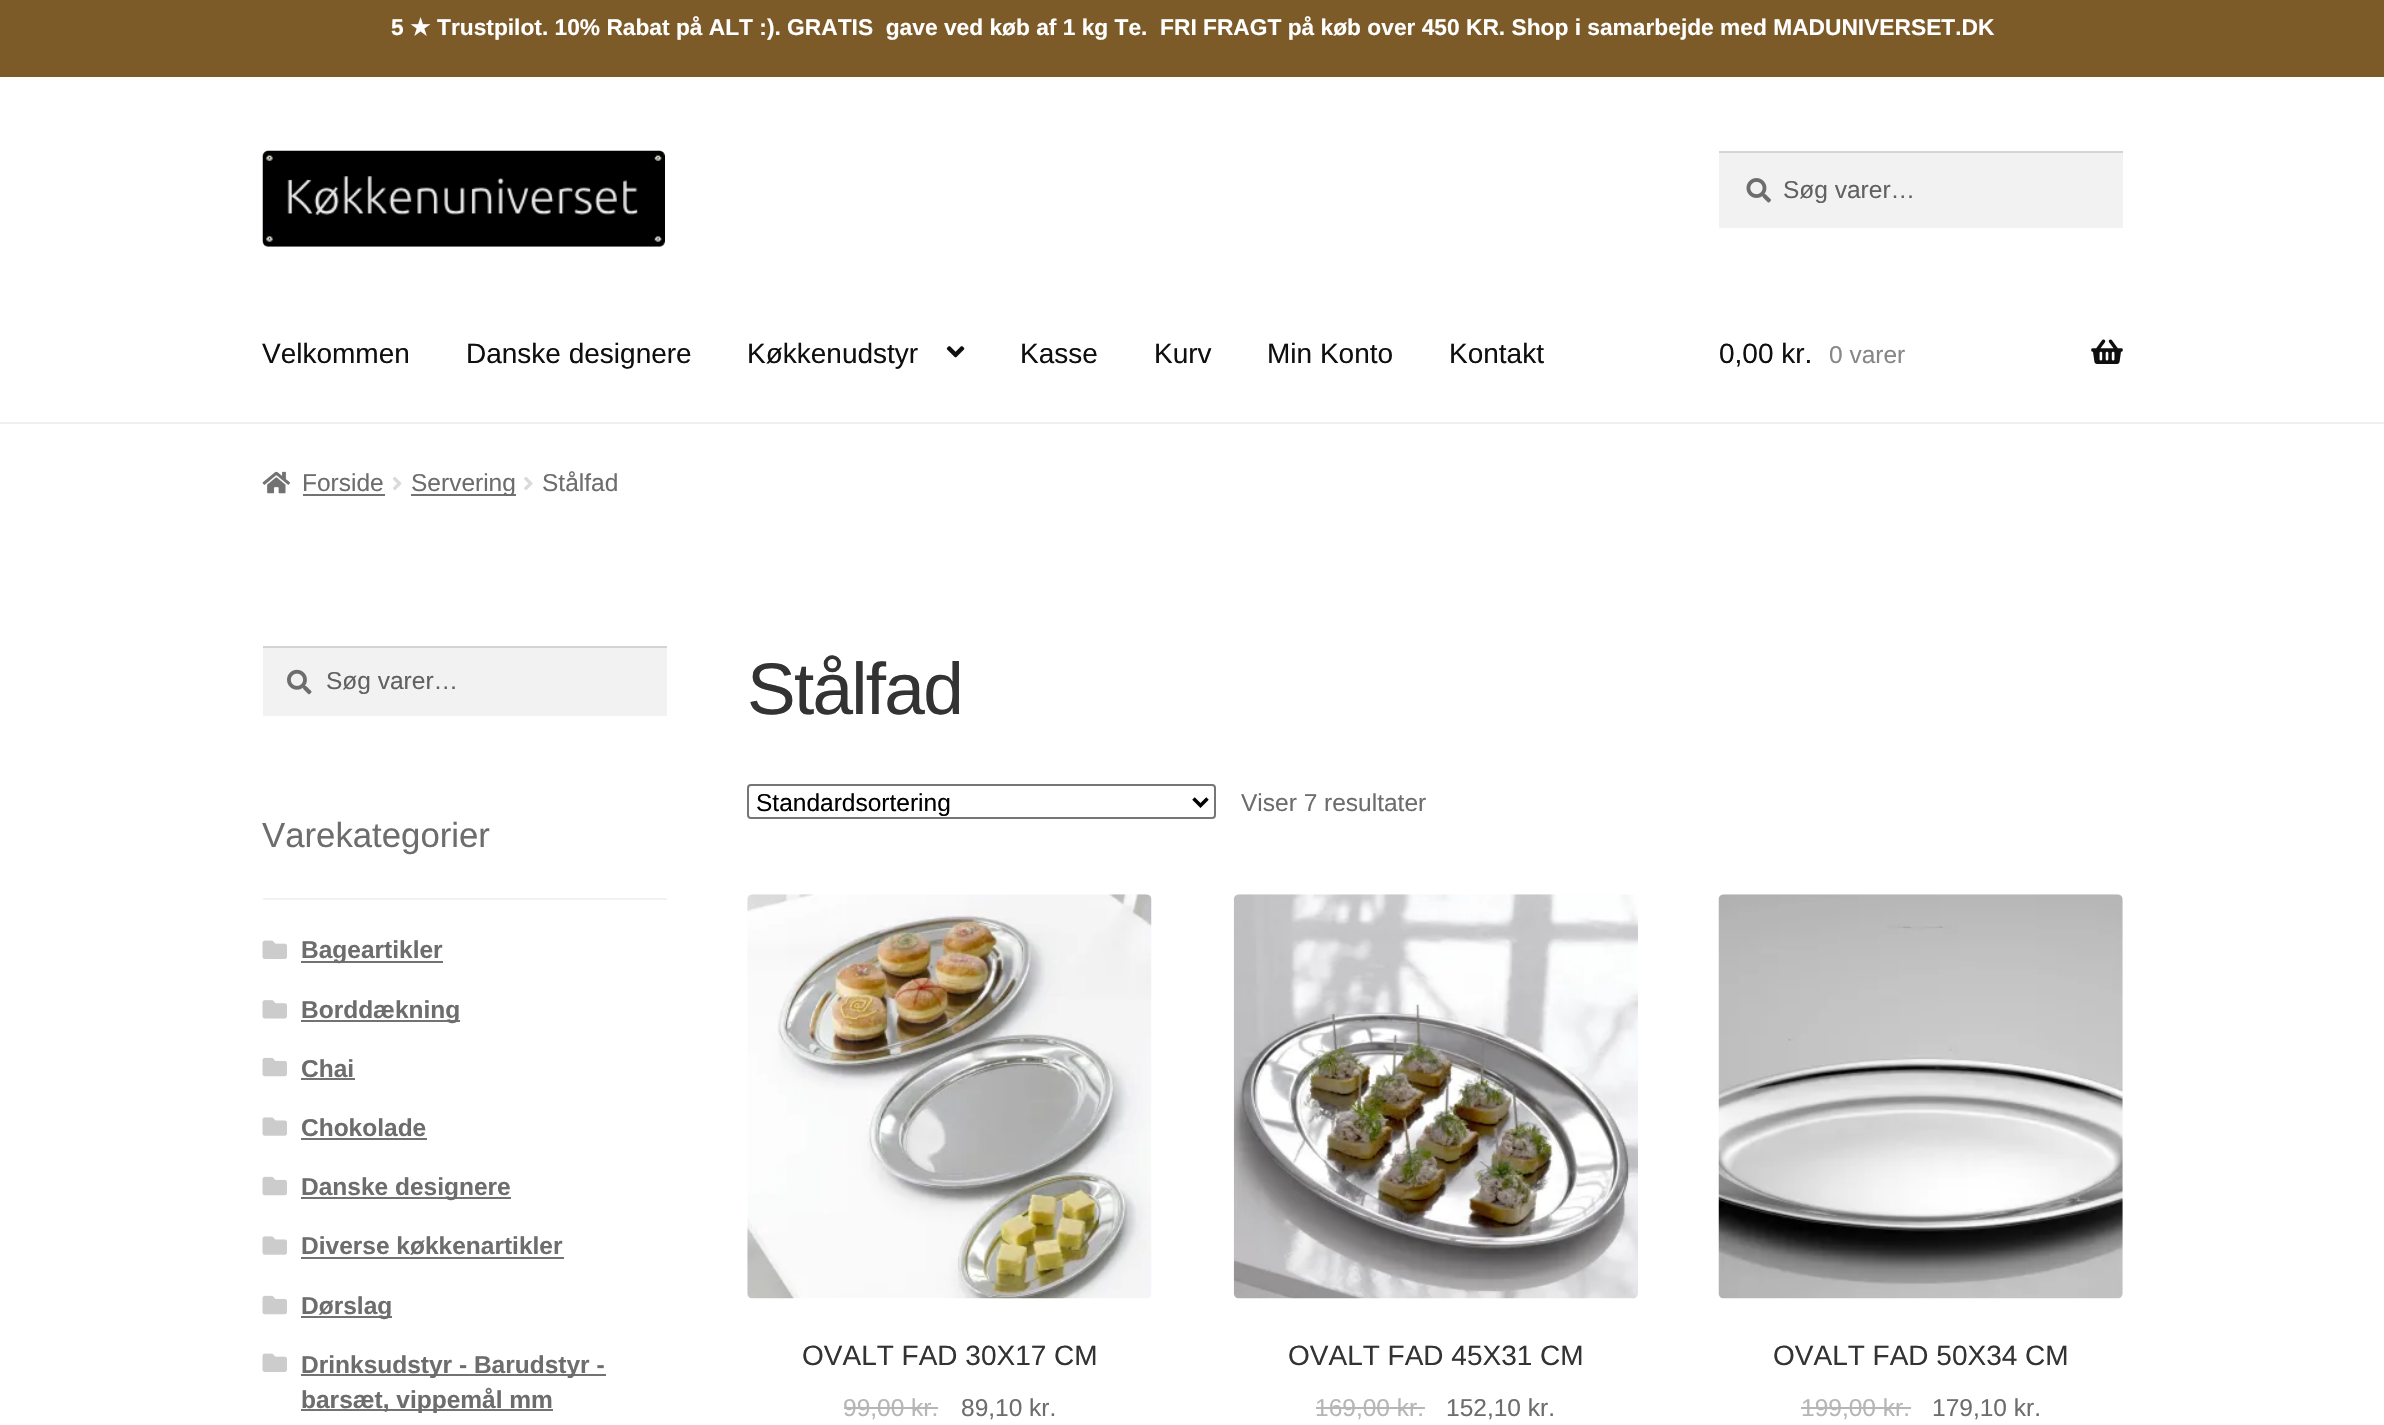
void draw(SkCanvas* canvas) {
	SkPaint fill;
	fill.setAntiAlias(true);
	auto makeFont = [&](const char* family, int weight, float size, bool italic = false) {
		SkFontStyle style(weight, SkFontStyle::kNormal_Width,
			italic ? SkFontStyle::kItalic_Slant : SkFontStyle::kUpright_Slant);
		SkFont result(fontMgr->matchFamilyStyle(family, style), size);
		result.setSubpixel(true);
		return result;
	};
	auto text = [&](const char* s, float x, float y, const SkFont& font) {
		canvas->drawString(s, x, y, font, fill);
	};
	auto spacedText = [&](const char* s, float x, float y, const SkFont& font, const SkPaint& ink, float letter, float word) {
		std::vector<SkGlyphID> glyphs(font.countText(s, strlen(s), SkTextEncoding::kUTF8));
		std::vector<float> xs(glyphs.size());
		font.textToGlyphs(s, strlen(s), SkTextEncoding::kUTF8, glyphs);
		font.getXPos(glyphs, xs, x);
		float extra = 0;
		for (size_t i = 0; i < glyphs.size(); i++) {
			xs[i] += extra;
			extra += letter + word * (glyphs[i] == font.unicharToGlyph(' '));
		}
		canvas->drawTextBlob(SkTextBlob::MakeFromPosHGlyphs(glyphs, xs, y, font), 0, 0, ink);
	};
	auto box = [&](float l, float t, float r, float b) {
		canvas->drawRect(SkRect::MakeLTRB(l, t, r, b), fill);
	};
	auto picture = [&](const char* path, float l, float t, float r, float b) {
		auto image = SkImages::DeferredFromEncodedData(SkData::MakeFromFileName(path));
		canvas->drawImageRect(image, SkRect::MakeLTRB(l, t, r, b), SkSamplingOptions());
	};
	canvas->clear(0xFFFFFFFF);
	fill.setColor(0xFF7C5B29);
	box(0, 0, 2384, 77);
	fill.setColor(0xFFF0F0F0);
	box(0, 422, 2384, 424);
	picture("image0.png", 262, 150, 665, 247);
	fill.setColor(0xFFF2F2F2);
	box(1719, 153, 2123, 228);
	picture("image1.png", 1746, 178, 1771, 203);
	fill.setColor(0xFFD4D4D4);
	box(1719, 151, 2123, 153);
	picture("image2.png", 946, 346, 965, 358);
	picture("image3.png", 2091, 339, 2123, 364);
	picture("image4.png", 262, 471, 290, 494);
	fill.setColor(0xFF727272);
	box(303, 494, 385, 496);
	picture("image5.png", 393, 476, 402, 491);
	box(411, 494, 516, 496);
	picture("image6.png", 524, 477, 533, 490);
	fill.setColor(0xFFF2F2F2);
	box(263, 648, 667, 716);
	picture("image7.png", 287, 669, 312, 695);
	fill.setColor(0xFFD4D4D4);
	box(263, 646, 667, 648);
	fill.setColor(0xFFF2F2F2);
	box(263, 898, 667, 900);
	picture("image8.png", 262, 940, 287, 959);
	fill.setColor(0xFF727272);
	box(301, 961, 443, 963);
	picture("image9.png", 262, 1000, 287, 1019);
	box(301, 1020, 460, 1022);
	picture("image10.png", 262, 1057, 287, 1077);
	box(301, 1078, 355, 1080);
	picture("image11.png", 262, 1117, 287, 1136);
	box(301, 1138, 427, 1140);
	picture("image10.png", 262, 1176, 287, 1196);
	box(301, 1197, 511, 1199);
	picture("image11.png", 262, 1236, 287, 1255);
	box(301, 1257, 564, 1259);
	picture("image10.png", 262, 1295, 287, 1315);
	box(301, 1316, 392, 1318);
	picture("image8.png", 262, 1353, 287, 1372);
	box(301, 1374, 606, 1376);
	box(301, 1409, 553, 1411);
	fill.setStyle(SkPaint::kStroke_Style);
	fill.setStrokeWidth(2);
	fill.setColor(0xFF767676);
	canvas->drawRoundRect(SkRect::MakeLTRB(748, 785, 1215, 818), 3, 3, fill);
	fill.setStrokeWidth(3.5f);
	fill.setColor(0xFF000000);
	canvas->drawPath(SkPathBuilder().moveTo(1193.5f, 798.5f).lineTo(1200.5f, 805.5f).lineTo(1207.5f, 798.5f).detach(), fill);
	picture("image12.png", 747, 894, 1152, 1299);
	fill.setStyle(SkPaint::kFill_Style);
	fill.setColor(0xFFB6B6B6);
	box(844, 1407, 938, 1409);
	picture("image13.png", 1233, 894, 1638, 1299);
	box(1316, 1407, 1425, 1409);
	picture("image14.png", 1718, 894, 2123, 1299);
	box(1801, 1407, 1911, 1409);
	auto font1 = makeFont("Liberation Sans", 700, 22.75f);
	fill.setColor(0xFFFFFFFF);
	text("5", 391, 35, font1);
	auto font2 = makeFont("DejaVu Sans", 700, 22.75f);
	text("★", 410, 35, font2);
	text("Trustpilot. 10% Rabat på ALT :). GRATIS  gave ved køb af 1 kg Te.  FRI FRAGT på køb over 450 KR. Shop i samarbejde med MADUNIVERSET.DK", 437, 35, font1);
	auto font3 = makeFont("Liberation Sans", 400, 24.5f);
	fill.setColor(0xFF616161);
	text("Søg varer…", 1783, 198, font3);
	auto font4 = makeFont("Liberation Sans", 400, 28);
	fill.setColor(0xFF0F0F0F);
	text("Velkommen", 262, 363, font4);
	text("Danske designere", 466, 363, font4);
	text("Køkkenudstyr", 747, 363, font4);
	text("Kasse", 1020, 363, font4);
	text("Kurv", 1154, 363, font4);
	text("Min Konto", 1267, 363, font4);
	text("Kontakt", 1449, 363, font4);
	text("0,00 kr.", 1719, 363, font4);
	fill.setColor(0xFF878787);
	text("0 varer", 1829, 363, font3);
	fill.setColor(0xFF6D6D6D);
	text("Forside", 302, 491, font3);
	text("Servering", 411, 491, font3);
	text("Stålfad", 542, 491, font3);
	fill.setColor(0xFF616161);
	text("Søg varer…", 326, 689, font3);
	auto font5 = makeFont("Liberation Sans", 400, 34.75f);
	fill.setColor(0xFF6D6D6D);
	text("Varekategorier", 262, 847, font5);
	auto font6 = makeFont("Liberation Sans", 700, 24.5f);
	text("Bageartikler", 301, 958, font6);
	text("Borddækning", 301, 1018, font6);
	text("Chai", 301, 1077, font6);
	text("Chokolade", 301, 1136, font6);
	text("Danske designere", 301, 1195, font6);
	text("Diverse køkkenartikler", 301, 1254, font6);
	text("Dørslag", 301, 1314, font6);
	text("Drinksudstyr - Barudstyr -", 301, 1373, font6);
	text("barsæt, vippemål mm", 301, 1408, font6);
	auto font7 = makeFont("Liberation Sans", 400, 73);
	fill.setColor(0xFF333333);
	spacedText("Stålfad", 747, 714, font7, fill, -1.75f, 0);
	fill.setColor(0xFF000000);
	text("Standardsortering", 756, 811, font3);
	fill.setColor(0xFF6D6D6D);
	text("Viser 7 resultater", 1241, 811, font3);
	fill.setColor(0xFF333333);
	text("OVALT FAD 30X17 CM", 802, 1365, font4);
	fill.setColor(0xFFB6B6B6);
	text("99,00 kr.", 843, 1416, font3);
	fill.setColor(0xFF6D6D6D);
	text("89,10 kr.", 961, 1416, font3);
	fill.setColor(0xFF333333);
	text("OVALT FAD 45X31 CM", 1288, 1365, font4);
	fill.setColor(0xFFB6B6B6);
	text("169,00 kr.", 1315, 1416, font3);
	fill.setColor(0xFF6D6D6D);
	text("152,10 kr.", 1446, 1416, font3);
	fill.setColor(0xFF333333);
	text("OVALT FAD 50X34 CM", 1773, 1365, font4);
	fill.setColor(0xFFB6B6B6);
	text("199,00 kr.", 1801, 1416, font3);
	fill.setColor(0xFF6D6D6D);
	text("179,10 kr.", 1932, 1416, font3);
}
